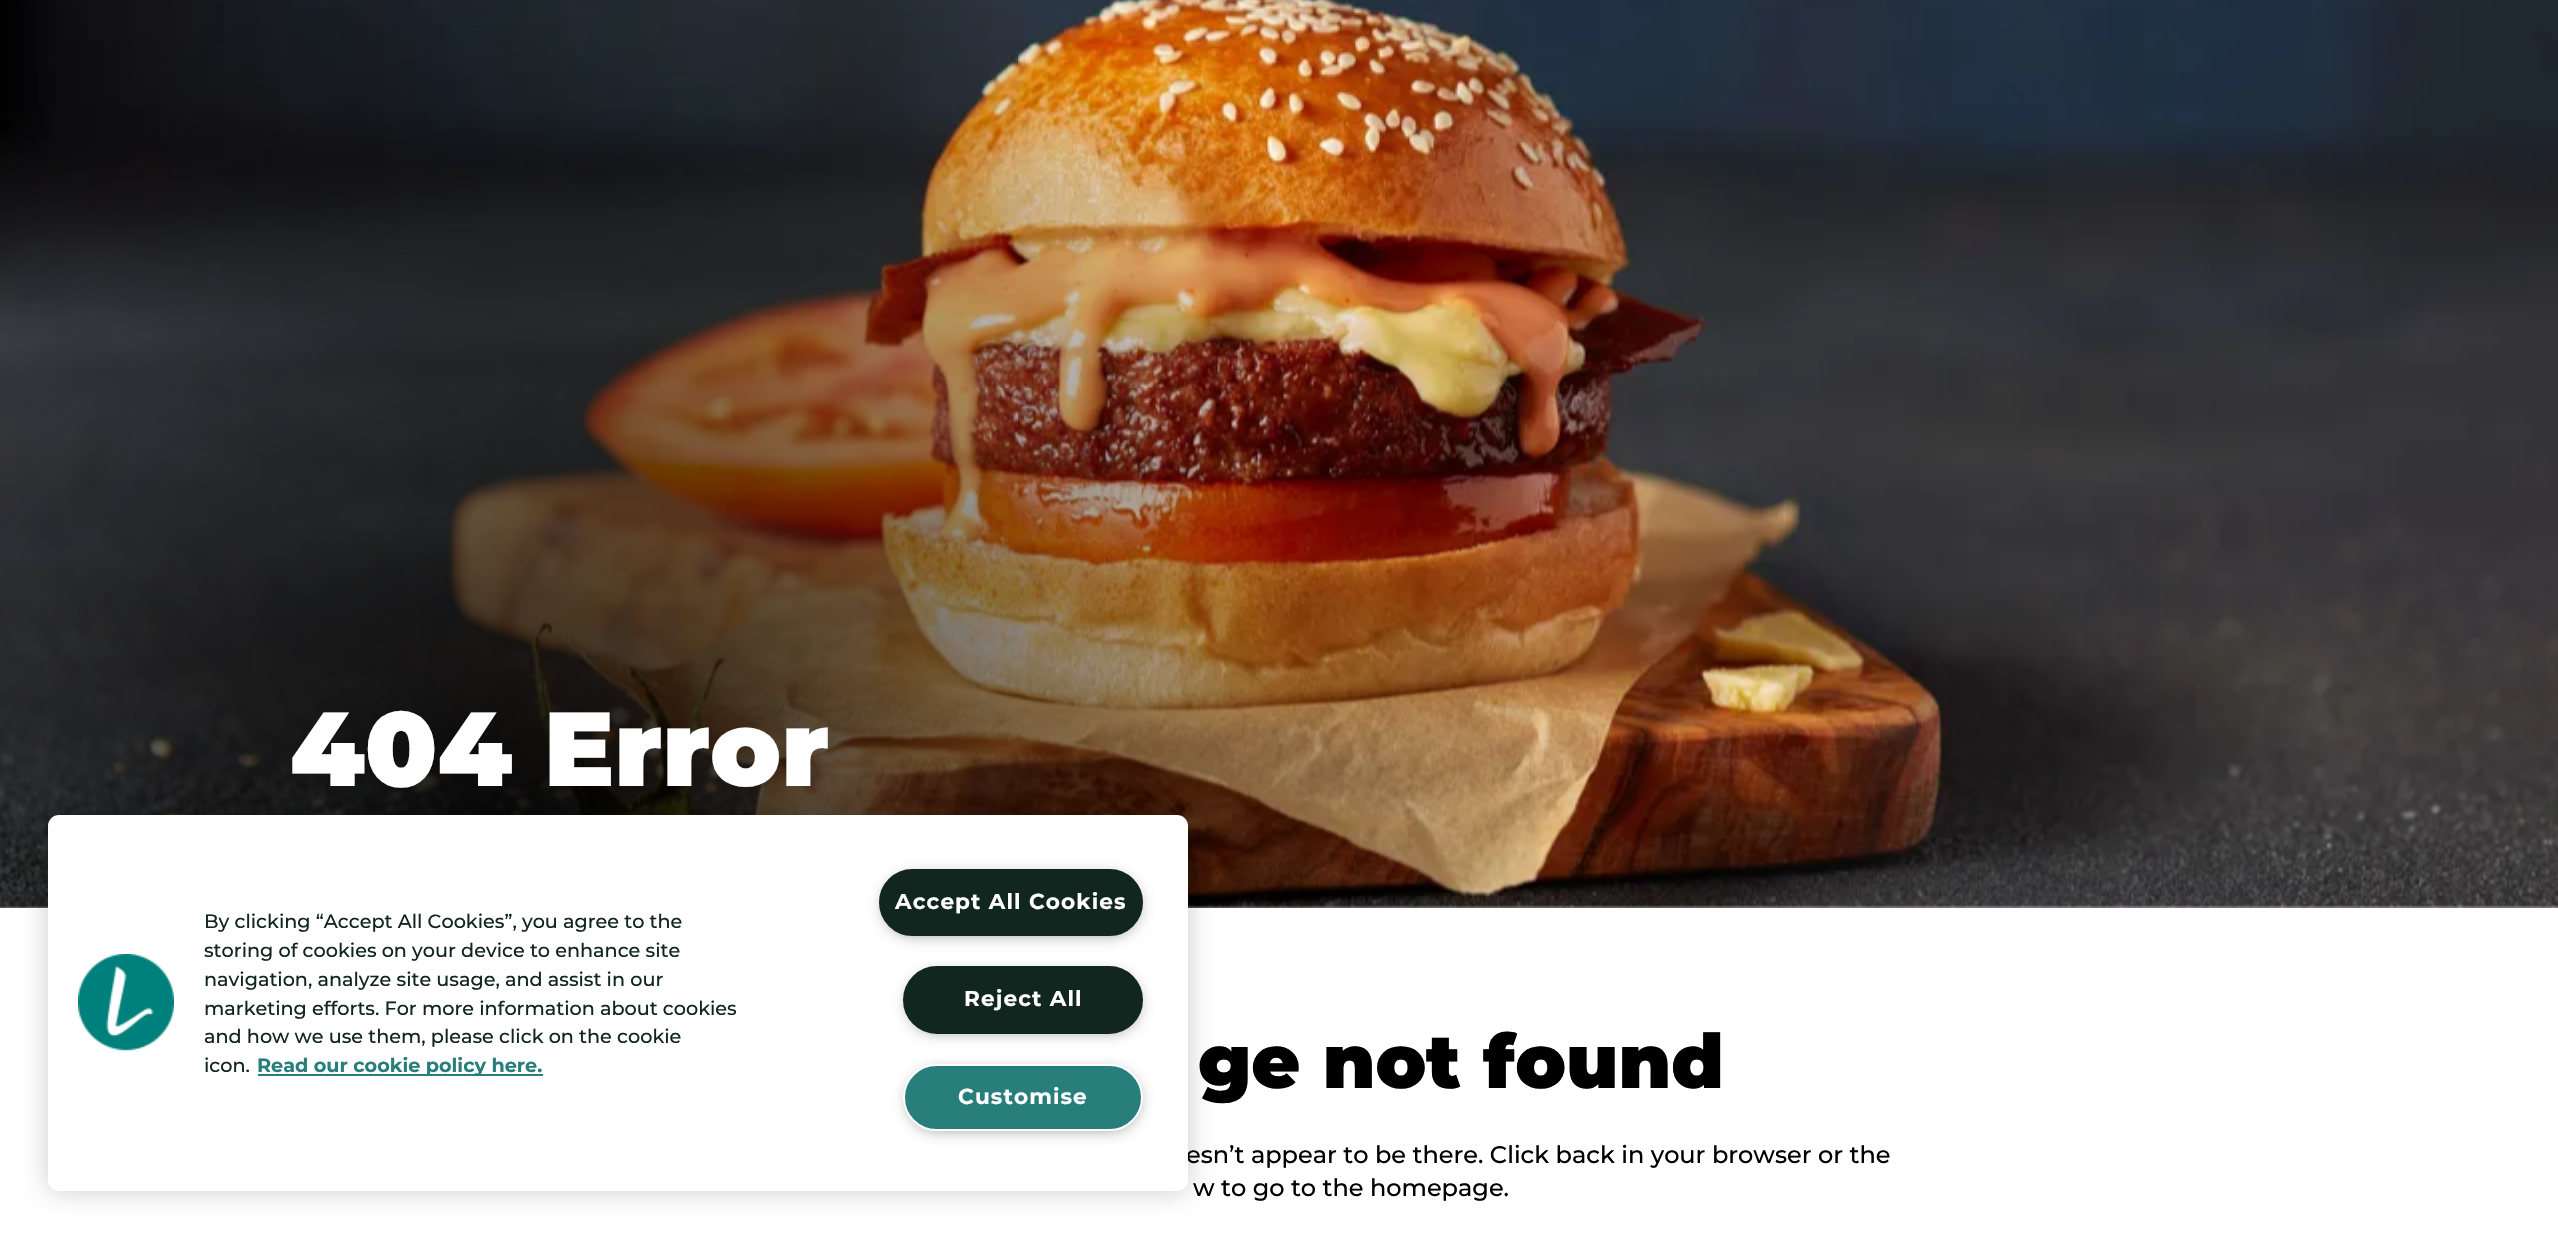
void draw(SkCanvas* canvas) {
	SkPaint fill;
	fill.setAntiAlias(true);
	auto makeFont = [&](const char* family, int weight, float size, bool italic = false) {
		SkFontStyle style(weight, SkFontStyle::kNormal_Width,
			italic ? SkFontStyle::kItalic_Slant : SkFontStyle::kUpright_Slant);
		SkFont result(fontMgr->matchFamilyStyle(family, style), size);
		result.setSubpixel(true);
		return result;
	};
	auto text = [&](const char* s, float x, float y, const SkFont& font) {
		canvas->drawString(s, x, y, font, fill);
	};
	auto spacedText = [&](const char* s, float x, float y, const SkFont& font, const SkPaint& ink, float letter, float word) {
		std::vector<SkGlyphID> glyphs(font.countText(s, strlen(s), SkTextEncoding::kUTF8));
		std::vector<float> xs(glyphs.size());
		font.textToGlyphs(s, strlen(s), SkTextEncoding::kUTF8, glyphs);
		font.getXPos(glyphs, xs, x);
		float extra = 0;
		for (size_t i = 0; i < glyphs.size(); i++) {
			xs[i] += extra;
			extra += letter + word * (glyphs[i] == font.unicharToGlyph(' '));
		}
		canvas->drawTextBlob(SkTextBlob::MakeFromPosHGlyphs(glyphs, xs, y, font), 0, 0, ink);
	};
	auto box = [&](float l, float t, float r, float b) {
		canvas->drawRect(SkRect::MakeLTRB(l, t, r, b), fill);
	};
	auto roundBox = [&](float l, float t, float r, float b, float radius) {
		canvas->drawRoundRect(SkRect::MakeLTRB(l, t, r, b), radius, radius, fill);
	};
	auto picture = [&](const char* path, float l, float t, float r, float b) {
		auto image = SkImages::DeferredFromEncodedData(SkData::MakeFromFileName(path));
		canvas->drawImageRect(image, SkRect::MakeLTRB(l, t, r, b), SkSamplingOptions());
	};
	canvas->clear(0xFFFFFFFF);
	picture("image0.png", 0, 0, 2558, 908);
	picture("image1.png", 0, 0, 1535, 908);
	fill.setColor(0x33000000);
	fill.setMaskFilter(SkMaskFilter::MakeBlur(kNormal_SkBlurStyle, 13.5f));
	canvas->drawRoundRect(SkRect::MakeLTRB(48, 815, 1188, 1191), 11, 11, fill);
	fill.setMaskFilter(nullptr);
	auto font1 = makeFont("Montserrat", 900, 105);
	fill.setColor(0xFFFFFFFF);
	text("404 Error", 290, 786, font1);
	auto font2 = makeFont("Montserrat", 900, 75);
	fill.setColor(0xFF000000);
	text("ge not found", 1198, 1088, font2);
	auto font3 = makeFont("Montserrat", 500, 24);
	text("esn’t appear to be there. Click back in your browser or the", 1186, 1163, font3);
	text("w to go to the homepage.", 1193, 1196, font3);
	fill.setColor(0xFFFFFFFF);
	roundBox(48, 815, 1188, 1191, 11);
	picture("image2.png", 78, 954, 174, 1051);
	auto font4 = makeFont("Montserrat", 500, 19.2f);
	fill.setColor(0xFF122620);
	text("By clicking “Accept All Cookies”, you agree to the", 204, 928, font4);
	text("storing of cookies on your device to enhance site", 204, 957, font4);
	text("navigation, analyze site usage, and assist in our", 204, 986, font4);
	text("marketing efforts. For more information about cookies", 204, 1015, font4);
	text("and how we use them, please click on the cookie", 204, 1043, font4);
	text("icon.", 204, 1072, font4);
	fill.setColor(0xFF287E7A);
	box(258, 1074, 543, 1076);
	auto font5 = makeFont("Montserrat", 700, 19.2f);
	text("Read our cookie policy here.", 257, 1072, font5);
	fill.setColor(0xFF999999);
	fill.setMaskFilter(SkMaskFilter::MakeBlur(kNormal_SkBlurStyle, 7.5f));
	canvas->drawRoundRect(SkRect::MakeLTRB(884, 876, 1139, 935), 29.5f, 29.5f, fill);
	fill.setMaskFilter(nullptr);
	fill.setColor(0xFF122620);
	canvas->drawRoundRect(SkRect::MakeLTRB(880, 870, 1142, 935), 32.5f, 32.5f, fill);
	fill.setStyle(SkPaint::kStroke_Style);
	fill.setStrokeWidth(2);
	canvas->drawRoundRect(SkRect::MakeLTRB(880, 870, 1142, 935), 32.5f, 32.5f, fill);
	auto font6 = makeFont("Montserrat", 700, 21.6f);
	fill.setStyle(SkPaint::kFill_Style);
	fill.setColor(0xFFFFFFFF);
	spacedText("Accept All Cookies", 895, 909, font6, fill, 1.1f, 0);
	fill.setColor(0xFF999999);
	fill.setMaskFilter(SkMaskFilter::MakeBlur(kNormal_SkBlurStyle, 7.5f));
	canvas->drawRoundRect(SkRect::MakeLTRB(908, 974, 1139, 1032), 29, 29, fill);
	fill.setMaskFilter(nullptr);
	fill.setColor(0xFF122620);
	canvas->drawRoundRect(SkRect::MakeLTRB(904, 967, 1142, 1033), 33, 33, fill);
	fill.setStyle(SkPaint::kStroke_Style);
	canvas->drawRoundRect(SkRect::MakeLTRB(904, 967, 1142, 1033), 33, 33, fill);
	fill.setStyle(SkPaint::kFill_Style);
	fill.setColor(0xFFFFFFFF);
	spacedText("Reject All", 964, 1006, font6, fill, 1.1f, 0);
	fill.setColor(0xFF999999);
	fill.setMaskFilter(SkMaskFilter::MakeBlur(kNormal_SkBlurStyle, 7.5f));
	canvas->drawRoundRect(SkRect::MakeLTRB(908, 1071, 1139, 1130), 29.5f, 29.5f, fill);
	fill.setMaskFilter(nullptr);
	fill.setColor(0xFF287E7A);
	canvas->drawRoundRect(SkRect::MakeLTRB(904, 1065, 1142, 1130), 32.5f, 32.5f, fill);
	fill.setStyle(SkPaint::kStroke_Style);
	fill.setColor(0xFFFFFFFF);
	canvas->drawRoundRect(SkRect::MakeLTRB(904, 1065, 1142, 1130), 32.5f, 32.5f, fill);
	fill.setStyle(SkPaint::kFill_Style);
	spacedText("Customise", 958, 1104, font6, fill, 1.1f, 0);
}
